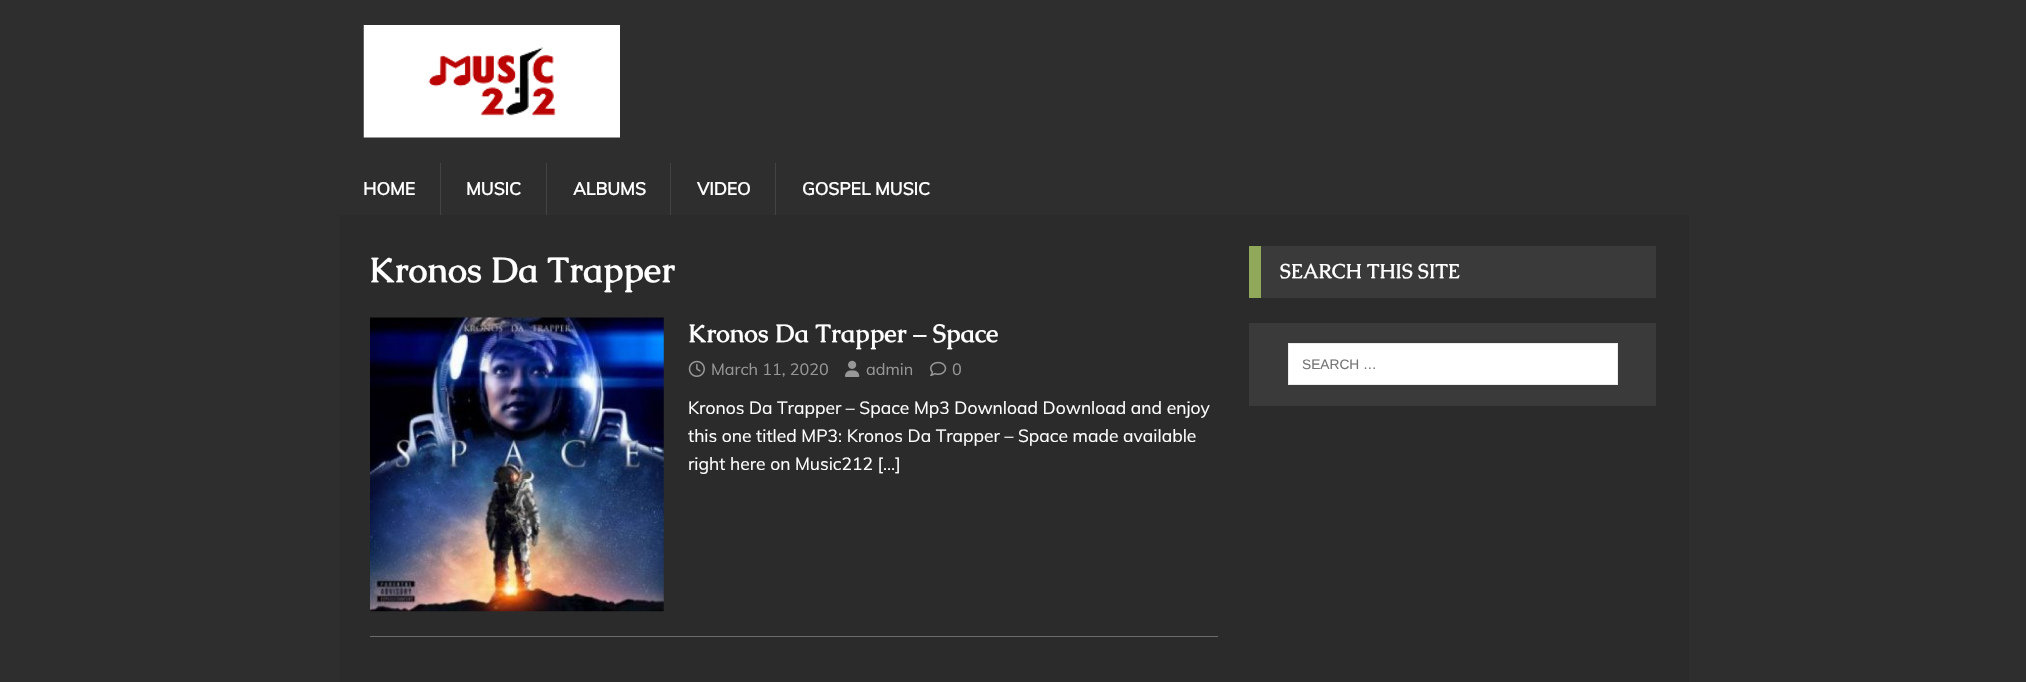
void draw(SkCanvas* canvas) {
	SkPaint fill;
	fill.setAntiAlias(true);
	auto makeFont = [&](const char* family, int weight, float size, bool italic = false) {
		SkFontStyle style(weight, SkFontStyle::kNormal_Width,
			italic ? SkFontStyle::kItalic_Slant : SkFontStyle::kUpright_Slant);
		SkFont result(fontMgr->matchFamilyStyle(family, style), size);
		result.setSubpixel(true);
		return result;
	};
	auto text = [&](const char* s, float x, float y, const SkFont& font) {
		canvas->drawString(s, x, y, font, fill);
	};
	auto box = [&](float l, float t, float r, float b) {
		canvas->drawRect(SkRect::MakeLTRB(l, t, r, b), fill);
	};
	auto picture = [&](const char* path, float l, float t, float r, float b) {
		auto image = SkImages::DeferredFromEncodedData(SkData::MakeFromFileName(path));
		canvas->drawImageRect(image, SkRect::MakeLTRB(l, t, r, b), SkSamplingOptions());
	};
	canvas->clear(0xFF2E2E2E);
	picture("image0.png", 363, 25, 620, 138);
	fill.setColor(0xFF434343);
	box(440, 163, 441, 215);
	box(546, 163, 547, 215);
	box(670, 163, 671, 215);
	box(775, 163, 776, 215);
	fill.setColor(0xFF2B2B2B);
	box(339, 215, 1689, 682);
	fill.setColor(0xFF6B6B6B);
	box(370, 636, 1218, 637);
	picture("image1.png", 370, 317, 664, 612);
	picture("image2.png", 688, 360, 705, 377);
	picture("image3.png", 845, 360, 860, 377);
	picture("image4.png", 930, 361, 947, 376);
	fill.setColor(0xFF3A3A3A);
	box(1261, 246, 1656, 298);
	fill.setColor(0xFF90A859);
	box(1249, 246, 1261, 298);
	fill.setColor(0xFF3A3A3A);
	box(1249, 323, 1656, 406);
	fill.setColor(0xFFFFFFFF);
	canvas->drawRect(SkRect::MakeLTRB(1288.5f, 343.5f, 1617.5f, 384.5f), fill);
	fill.setStyle(SkPaint::kStroke_Style);
	fill.setStrokeWidth(1);
	fill.setColor(0xFFEBEBEB);
	canvas->drawRect(SkRect::MakeLTRB(1288.5f, 343.5f, 1617.5f, 384.5f), fill);
	auto font1 = makeFont("Muli", 700, 17.5f);
	fill.setStyle(SkPaint::kFill_Style);
	fill.setColor(0xFFFFFFFF);
	text("HOME", 363, 195, font1);
	text("MUSIC", 466, 195, font1);
	text("ALBUMS", 573, 195, font1);
	text("VIDEO", 697, 195, font1);
	text("GOSPEL MUSIC", 802, 195, font1);
	auto font2 = makeFont("Caudex", 700, 35);
	text("Kronos Da Trapper", 369, 282, font2);
	auto font3 = makeFont("Caudex", 700, 25);
	text("Kronos Da Trapper – Space", 688, 342, font3);
	auto font4 = makeFont("Muli", 400, 16.25f);
	fill.setColor(0xFF979797);
	text("March 11, 2020", 711, 375, font4);
	text("admin", 866, 375, font4);
	text("0", 952, 375, font4);
	auto font5 = makeFont("Muli", 400, 17.5f);
	fill.setColor(0xFFFFFFFF);
	text("Kronos Da Trapper – Space Mp3 Download Download and enjoy", 688, 414, font5);
	text("this one titled MP3: Kronos Da Trapper – Space made available", 688, 442, font5);
	text("right here on Music212 […]", 688, 470, font5);
	auto font6 = makeFont("Caudex", 700, 20);
	text("SEARCH THIS SITE", 1280, 278, font6);
	auto font7 = makeFont("Liberation Sans", 400, 13.75f);
	fill.setColor(0xFF757575);
	text("SEARCH …", 1302, 369, font7);
}
